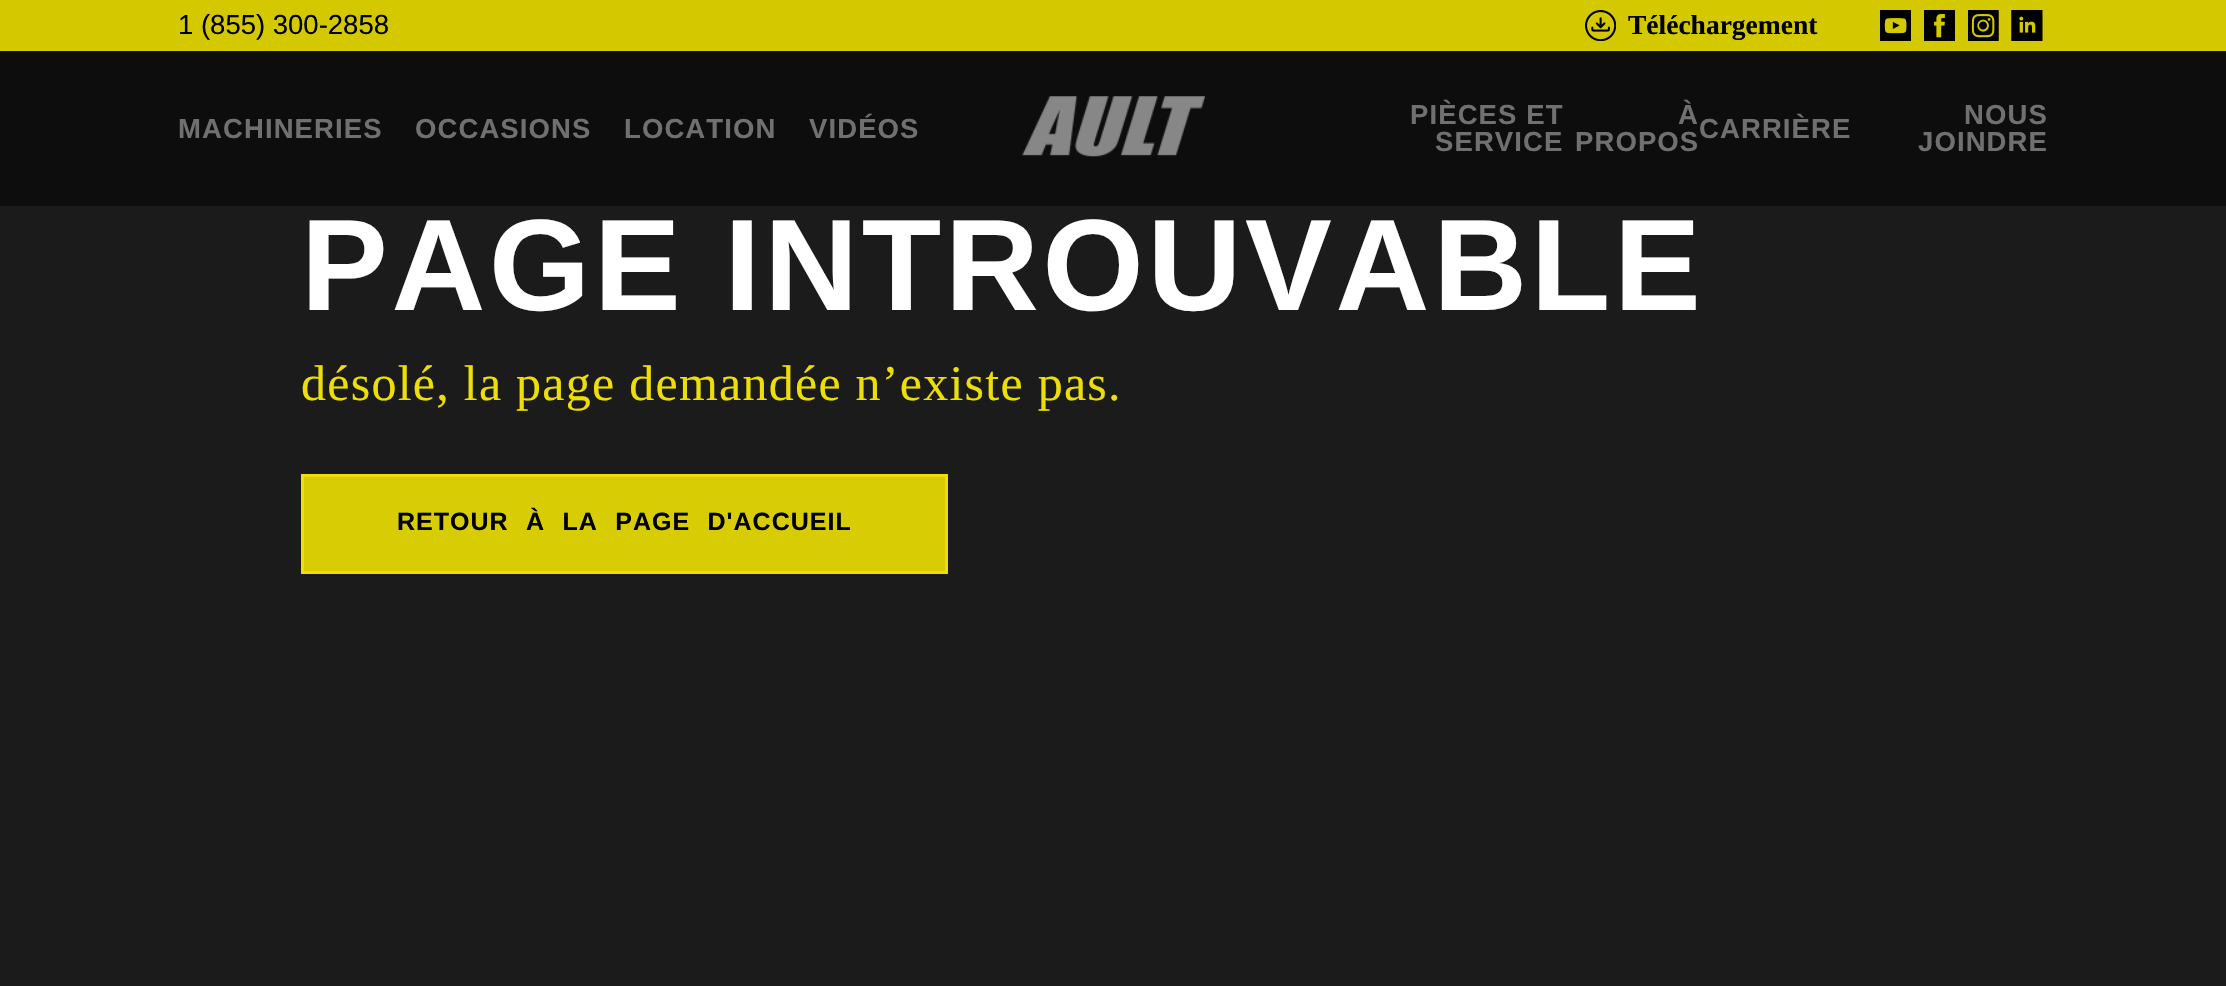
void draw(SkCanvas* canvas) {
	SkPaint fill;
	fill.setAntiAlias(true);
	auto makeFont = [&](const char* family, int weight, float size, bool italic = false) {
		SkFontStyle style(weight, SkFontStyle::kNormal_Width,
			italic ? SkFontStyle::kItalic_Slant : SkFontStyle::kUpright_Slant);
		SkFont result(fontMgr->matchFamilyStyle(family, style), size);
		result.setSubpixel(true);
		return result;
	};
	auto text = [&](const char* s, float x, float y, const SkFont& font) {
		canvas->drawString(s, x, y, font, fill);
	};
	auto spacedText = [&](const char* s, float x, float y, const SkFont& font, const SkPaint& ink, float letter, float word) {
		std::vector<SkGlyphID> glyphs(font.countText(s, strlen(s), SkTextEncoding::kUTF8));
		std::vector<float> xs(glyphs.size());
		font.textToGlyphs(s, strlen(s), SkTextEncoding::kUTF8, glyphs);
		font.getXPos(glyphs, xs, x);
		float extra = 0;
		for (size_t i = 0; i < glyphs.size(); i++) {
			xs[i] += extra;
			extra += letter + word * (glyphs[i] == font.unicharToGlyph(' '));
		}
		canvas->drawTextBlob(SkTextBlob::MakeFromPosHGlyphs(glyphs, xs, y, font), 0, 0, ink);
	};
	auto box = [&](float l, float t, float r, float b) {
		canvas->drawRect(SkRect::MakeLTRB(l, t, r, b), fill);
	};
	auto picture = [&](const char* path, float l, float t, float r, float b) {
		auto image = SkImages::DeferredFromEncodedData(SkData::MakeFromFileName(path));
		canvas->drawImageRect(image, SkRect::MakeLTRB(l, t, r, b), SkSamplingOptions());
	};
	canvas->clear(0xFF1B1B1B);
	fill.setColor(0xFFD4C800);
	box(0, 0, 2226, 51);
	picture("image0.png", 1585, 10, 1616, 41);
	picture("image1.png", 1880, 10, 1911, 41);
	picture("image2.png", 1924, 10, 1955, 41);
	picture("image3.png", 1968, 10, 1999, 41);
	picture("image4.png", 2011, 10, 2043, 41);
	fill.setColor(0xFF0D0D0D);
	box(0, 51, 2226, 206);
	picture("image5.png", 1022, 96, 1205, 157);
	fill.setColor(0xFFD8CC05);
	canvas->drawRect(SkRect::MakeLTRB(302.5f, 475.5f, 946.5f, 572.5f), fill);
	fill.setStyle(SkPaint::kStroke_Style);
	fill.setStrokeWidth(3);
	fill.setColor(0xFFECDE06);
	canvas->drawRect(SkRect::MakeLTRB(302.5f, 475.5f, 946.5f, 572.5f), fill);
	auto font1 = makeFont("Liberation Sans", 400, 27.5f);
	fill.setStyle(SkPaint::kFill_Style);
	fill.setColor(0xFF000000);
	text("1 (855) 300-2858", 178, 34, font1);
	auto font2 = makeFont("Liberation Serif", 700, 27.5f);
	text("Téléchargement", 1628, 34, font2);
	auto font3 = makeFont("Liberation Sans", 700, 27.5f);
	fill.setColor(0xFF707070);
	spacedText("MACHINERIES", 178, 138, font3, fill, 1.1f, 0);
	spacedText("OCCASIONS", 415, 138, font3, fill, 1.1f, 0);
	spacedText("LOCATION", 624, 138, font3, fill, 1.1f, 0);
	spacedText("VIDÉOS", 809, 138, font3, fill, 1.1f, 0);
	spacedText("PIÈCES ET", 1410, 124, font3, fill, 1.1f, 0);
	spacedText("SERVICE", 1435, 151, font3, fill, 1.1f, 0);
	spacedText("À", 1678, 124, font3, fill, 1.1f, 0);
	spacedText("PROPOS", 1575, 151, font3, fill, 1.1f, 0);
	spacedText("CARRIÈRE", 1699, 138, font3, fill, 1.1f, 0);
	spacedText("NOUS", 1964, 124, font3, fill, 1.1f, 0);
	spacedText("JOINDRE", 1918, 151, font3, fill, 1.1f, 0);
	auto font4 = makeFont("Liberation Sans", 700, 130);
	fill.setColor(0xFFFFFFFF);
	spacedText("PAGE INTROUVABLE", 301, 310, font4, fill, 3.75f, 0);
	auto font5 = makeFont("Liberation Serif", 400, 50);
	fill.setColor(0xFFECDE06);
	spacedText("désolé, la page demandée n’existe pas.", 301, 400, font5, fill, 1.25f, 0);
	auto font6 = makeFont("Liberation Sans", 700, 25);
	fill.setColor(0xFF000000);
	spacedText("RETOUR À LA PAGE D'ACCUEIL", 397, 530, font6, fill, 1, 9.5f);
}
